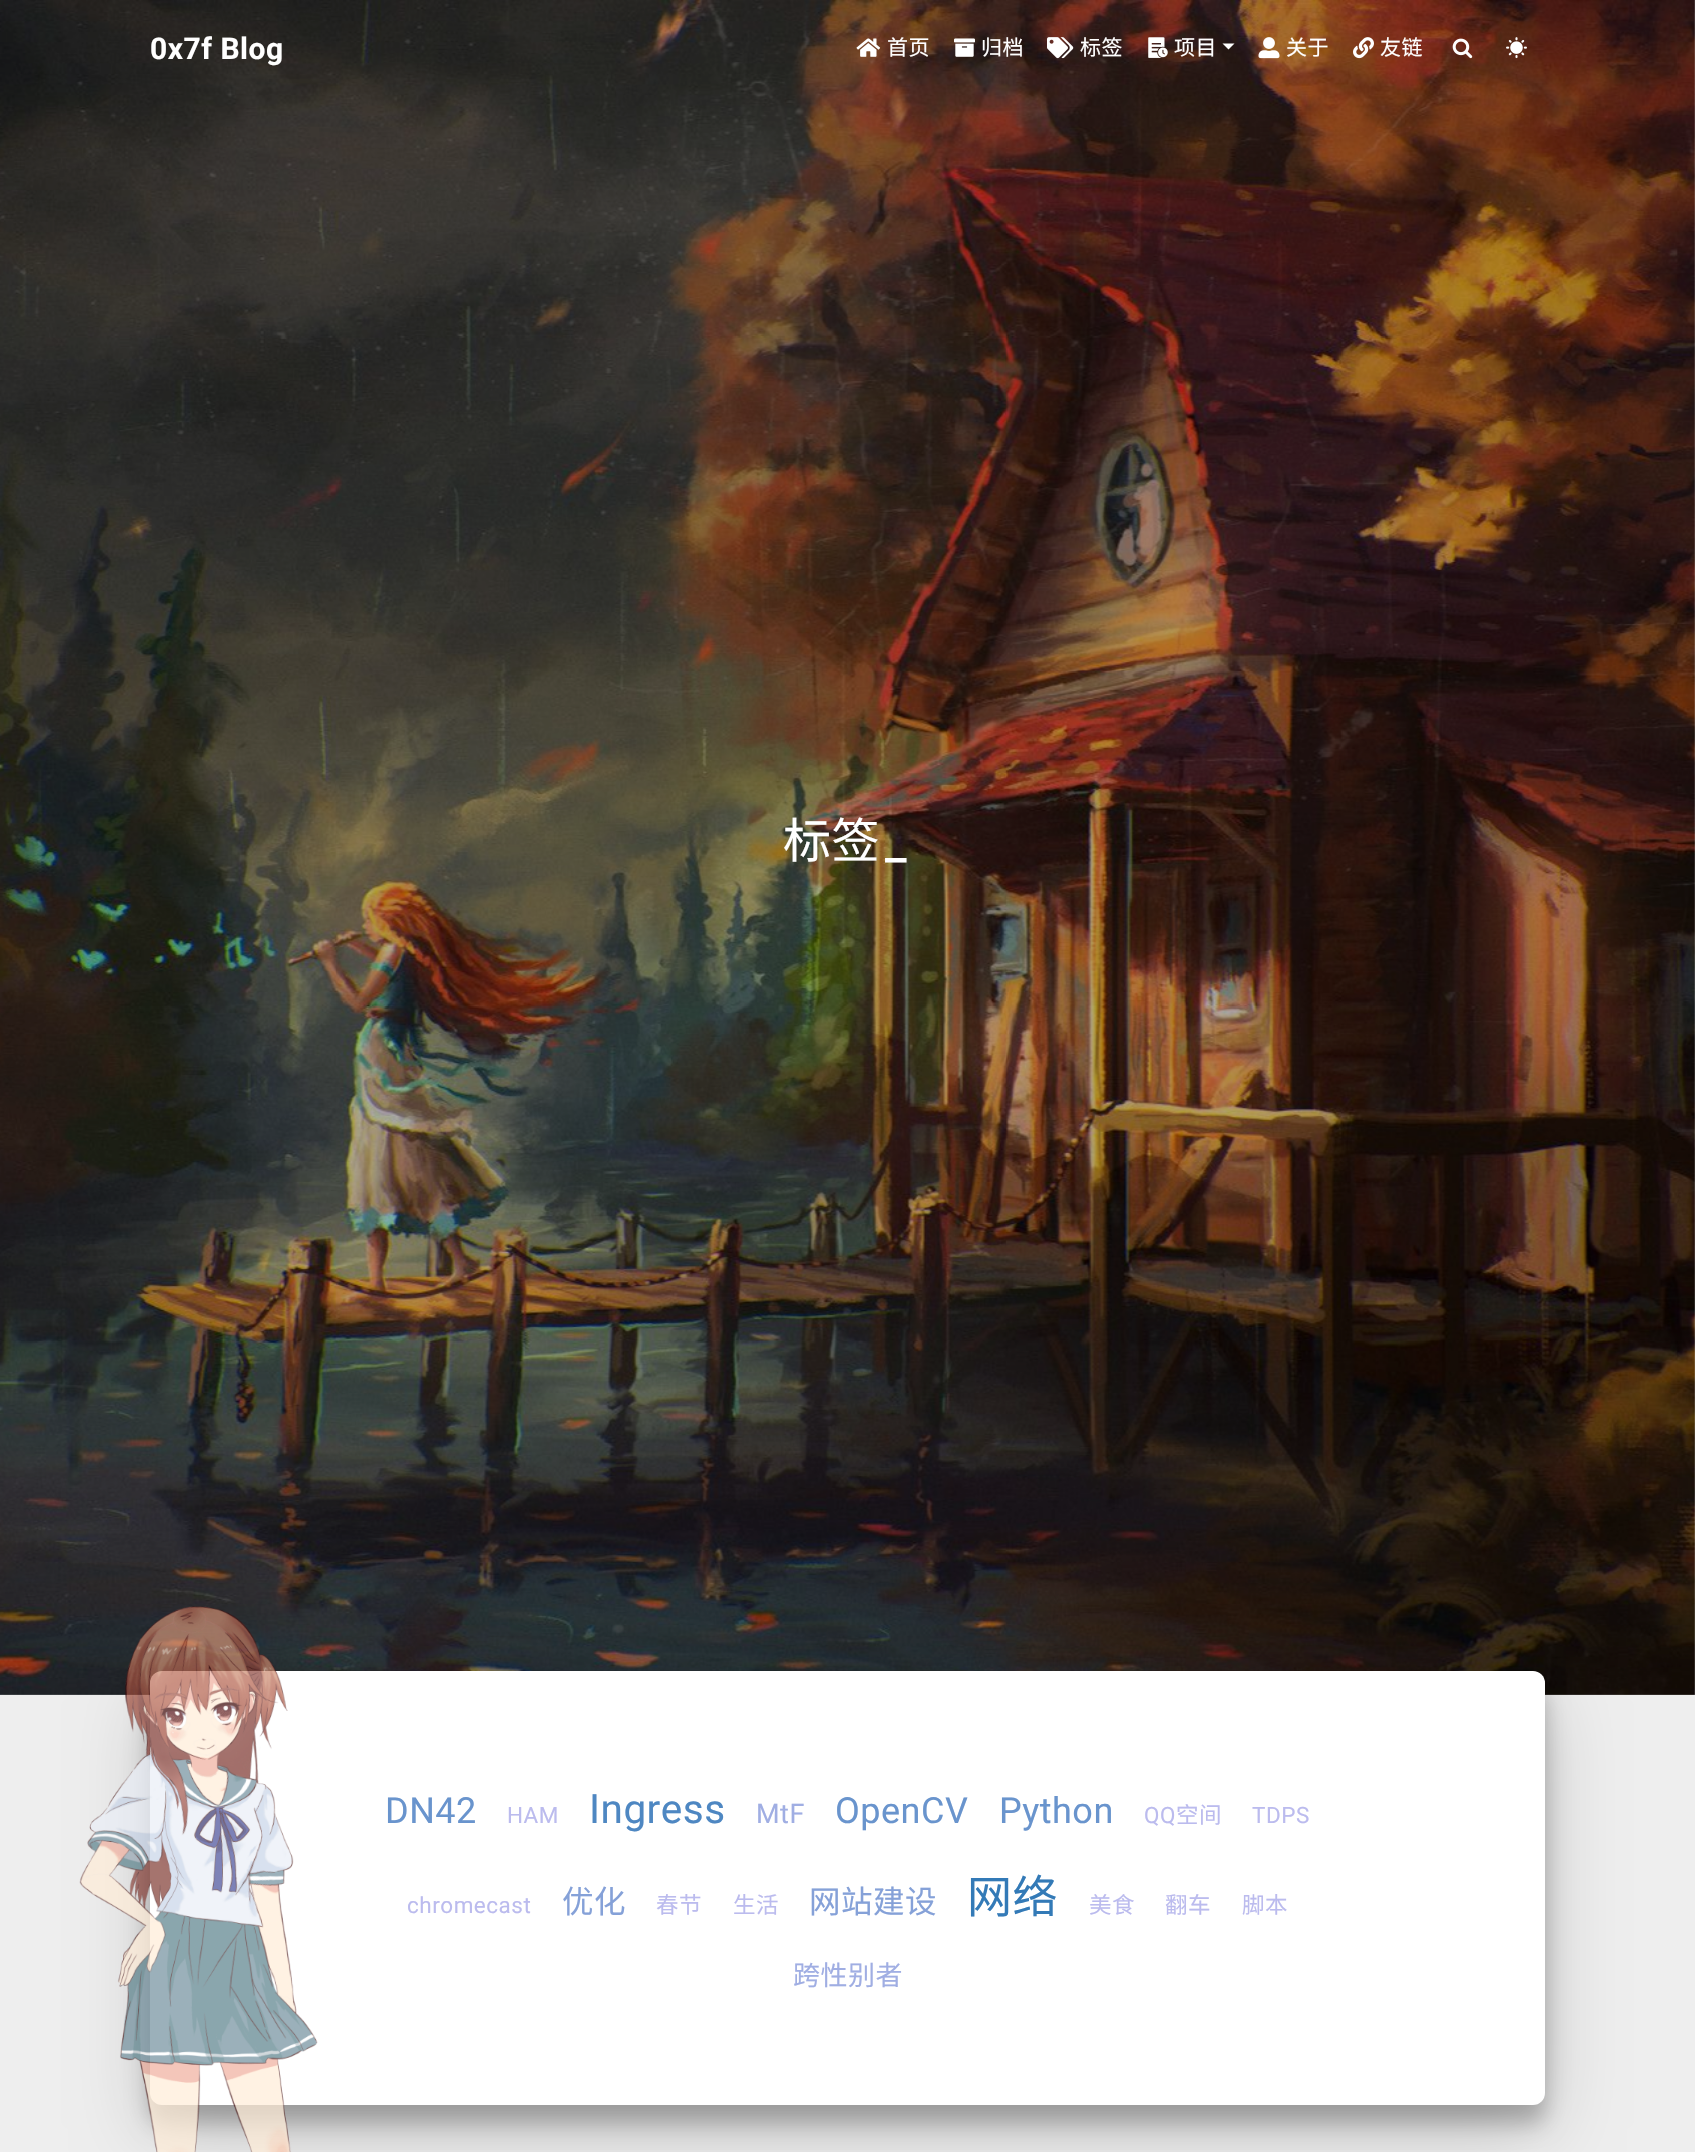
void draw(SkCanvas* canvas) {
	SkPaint fill;
	fill.setAntiAlias(true);
	auto makeFont = [&](const char* family, int weight, float size, bool italic = false) {
		SkFontStyle style(weight, SkFontStyle::kNormal_Width,
			italic ? SkFontStyle::kItalic_Slant : SkFontStyle::kUpright_Slant);
		SkFont result(fontMgr->matchFamilyStyle(family, style), size);
		result.setSubpixel(true);
		return result;
	};
	auto spacedText = [&](const char* s, float x, float y, const SkFont& font, const SkPaint& ink, float letter, float word) {
		std::vector<SkGlyphID> glyphs(font.countText(s, strlen(s), SkTextEncoding::kUTF8));
		std::vector<float> xs(glyphs.size());
		font.textToGlyphs(s, strlen(s), SkTextEncoding::kUTF8, glyphs);
		font.getXPos(glyphs, xs, x);
		float extra = 0;
		for (size_t i = 0; i < glyphs.size(); i++) {
			xs[i] += extra;
			extra += letter + word * (glyphs[i] == font.unicharToGlyph(' '));
		}
		canvas->drawTextBlob(SkTextBlob::MakeFromPosHGlyphs(glyphs, xs, y, font), 0, 0, ink);
	};
	auto roundBox = [&](float l, float t, float r, float b, float radius) {
		canvas->drawRoundRect(SkRect::MakeLTRB(l, t, r, b), radius, radius, fill);
	};
	auto picture = [&](const char* path, float l, float t, float r, float b) {
		auto image = SkImages::DeferredFromEncodedData(SkData::MakeFromFileName(path));
		canvas->drawImageRect(image, SkRect::MakeLTRB(l, t, r, b), SkSamplingOptions());
	};
	canvas->clear(0xFFEEEEEE);
	picture("image8.png", 0, 0, 1695, 1695);
	picture("image0.png", 856, 38, 881, 57);
	picture("image1.png", 954, 38, 975, 57);
	picture("image2.png", 1047, 37, 1074, 59);
	picture("image3.png", 1148, 37, 1168, 58);
	fill.setColor(0xFFFFFFFF);
	canvas->drawPath(SkPathBuilder().moveTo(1222.5f, 43.5f).lineTo(1234.5f, 43.5f).lineTo(1228.5f, 49.5f).close().detach(), fill);
	picture("image4.png", 1258, 37, 1280, 59);
	picture("image5.png", 1353, 37, 1374, 59);
	picture("image6.png", 1452, 38, 1473, 59);
	picture("image7.png", 1506, 37, 1527, 59);
	fill.setColor(0x30000000);
	fill.setMaskFilter(SkMaskFilter::MakeBlur(kNormal_SkBlurStyle, 37.5f));
	canvas->drawRoundRect(SkRect::MakeLTRB(150, 1697, 1545, 2130), 12, 12, fill);
	fill.setMaskFilter(nullptr);
	fill.setColor(0x3D000000);
	fill.setMaskFilter(SkMaskFilter::MakeBlur(kNormal_SkBlurStyle, 11));
	canvas->drawRoundRect(SkRect::MakeLTRB(150, 1689, 1545, 2123), 12, 12, fill);
	fill.setMaskFilter(nullptr);
	fill.setColor(0xFFFFFFFF);
	roundBox(150, 1671, 1545, 2105, 12);
	picture("image9.png", 79, 1606, 318, 2152);
	auto font1 = makeFont("Roboto", 700, 30);
	spacedText("0x7f Blog", 150, 59, font1, fill, 0.5f, 0);
	auto font2 = makeFont("Noto Sans CJK SC", 400, 21);
	spacedText("首页", 887, 55, font2, fill, 0.5f, 0);
	spacedText("归档", 981, 55, font2, fill, 0.5f, 0);
	spacedText("标签", 1080, 55, font2, fill, 0.5f, 0);
	spacedText("项目", 1174, 55, font2, fill, 0.5f, 0);
	spacedText("关于", 1286, 55, font2, fill, 0.5f, 0);
	spacedText("友链", 1380, 55, font2, fill, 0.5f, 0);
	auto font3 = makeFont("Noto Sans CJK SC", 400, 48);
	spacedText("标签", 783, 858, font3, fill, 0.5f, 0);
	auto font4 = makeFont("Roboto", 500, 48);
	spacedText("_", 885, 858, font4, fill, 0.5f, 0);
	auto font5 = makeFont("Roboto", 400, 36);
	fill.setColor(0xFF6994CD);
	spacedText("DN42", 385, 1823, font5, fill, 0.5f, 0);
	auto font6 = makeFont("Roboto", 400, 22.5f);
	fill.setColor(0xFFBBBBEE);
	spacedText("HAM", 507, 1823, font6, fill, 0.5f, 0);
	auto font7 = makeFont("Roboto", 400, 40.5f);
	fill.setColor(0xFF4E87C2);
	spacedText("Ingress", 589, 1823, font7, fill, 0.5f, 0);
	auto font8 = makeFont("Roboto", 400, 27);
	fill.setColor(0xFFA0AEE3);
	spacedText("MtF", 756, 1823, font8, fill, 0.5f, 0);
	fill.setColor(0xFF6994CD);
	spacedText("OpenCV", 835, 1823, font5, fill, 0.5f, 0);
	spacedText("Python", 999, 1823, font5, fill, 0.5f, 0);
	fill.setColor(0xFFBBBBEE);
	spacedText("QQ", 1144, 1823, font6, fill, 0.5f, 0);
	auto font9 = makeFont("Noto Sans CJK SC", 400, 22.5f);
	spacedText("空间", 1176, 1823, font9, fill, 0.5f, 0);
	spacedText("TDPS", 1252, 1823, font6, fill, 0.5f, 0);
	spacedText("chromecast", 407, 1913, font6, fill, 0.5f, 0);
	auto font10 = makeFont("Noto Sans CJK SC", 400, 31.5f);
	fill.setColor(0xFF85A1D8);
	spacedText("优化", 562, 1913, font10, fill, 0.5f, 0);
	fill.setColor(0xFFBBBBEE);
	spacedText("春节", 656, 1913, font9, fill, 0.5f, 0);
	spacedText("生活", 733, 1913, font9, fill, 0.5f, 0);
	fill.setColor(0xFF85A1D8);
	spacedText("网站建设", 809, 1913, font10, fill, 0.5f, 0);
	auto font11 = makeFont("Noto Sans CJK SC", 400, 45);
	fill.setColor(0xFF337AB7);
	spacedText("网络", 967, 1913, font11, fill, 0.5f, 0);
	fill.setColor(0xFFBBBBEE);
	spacedText("美食", 1089, 1913, font9, fill, 0.5f, 0);
	spacedText("翻车", 1165, 1913, font9, fill, 0.5f, 0);
	spacedText("脚本", 1242, 1913, font9, fill, 0.5f, 0);
	auto font12 = makeFont("Noto Sans CJK SC", 400, 27);
	fill.setColor(0xFFA0AEE3);
	spacedText("跨性别者", 793, 1985, font12, fill, 0.5f, 0);
}
